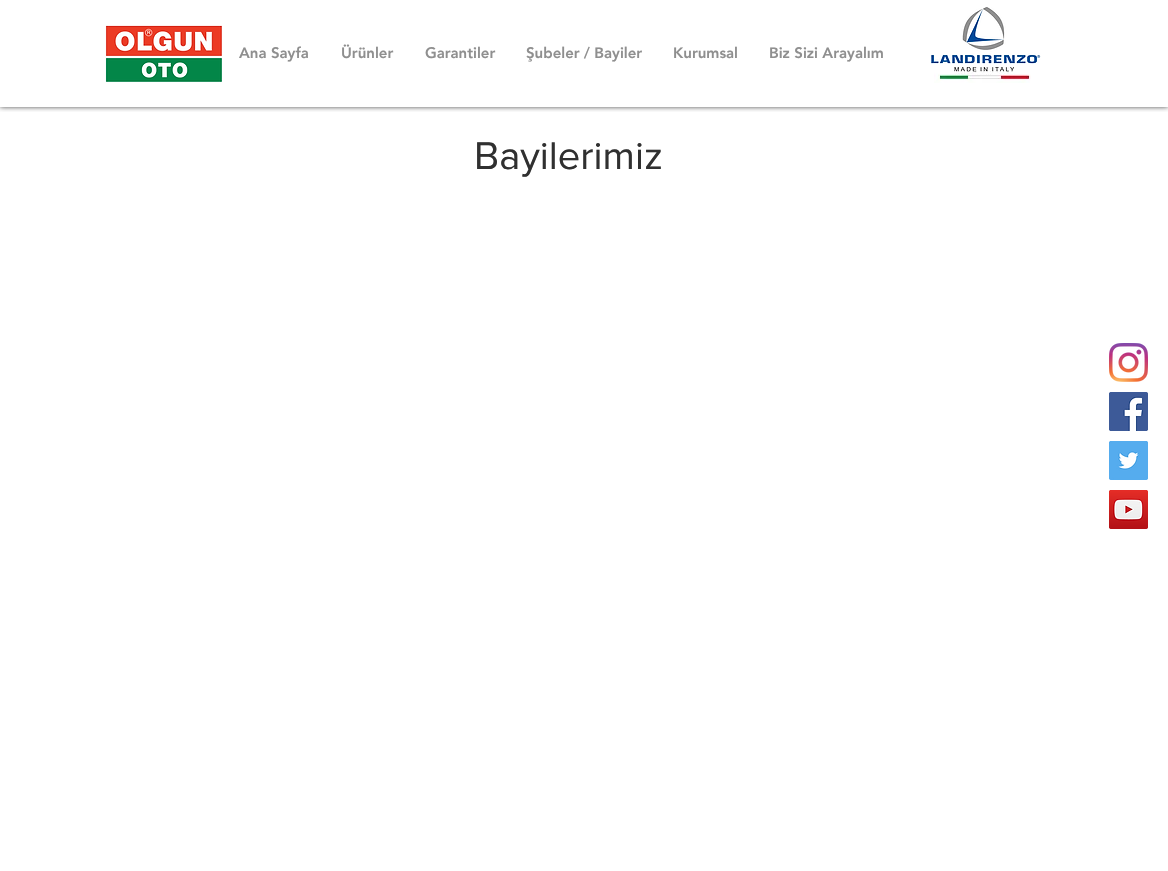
void draw(SkCanvas* canvas) {
	SkPaint fill;
	fill.setAntiAlias(true);
	auto makeFont = [&](const char* family, int weight, float size, bool italic = false) {
		SkFontStyle style(weight, SkFontStyle::kNormal_Width,
			italic ? SkFontStyle::kItalic_Slant : SkFontStyle::kUpright_Slant);
		SkFont result(fontMgr->matchFamilyStyle(family, style), size);
		result.setSubpixel(true);
		return result;
	};
	auto text = [&](const char* s, float x, float y, const SkFont& font) {
		canvas->drawString(s, x, y, font, fill);
	};
	auto picture = [&](const char* path, float l, float t, float r, float b) {
		auto image = SkImages::DeferredFromEncodedData(SkData::MakeFromFileName(path));
		canvas->drawImageRect(image, SkRect::MakeLTRB(l, t, r, b), SkSamplingOptions());
	};
	canvas->clear(0xFFFFFFFF);
	canvas->save();
	canvas->clipRect(SkRect::MakeLTRB(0, 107, 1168, 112));
	fill.setColor(0xB3000000);
	fill.setMaskFilter(SkMaskFilter::MakeBlur(kNormal_SkBlurStyle, 2.5f));
	canvas->drawRect(SkRect::MakeLTRB(0, 0, 1168, 107), fill);
	fill.setMaskFilter(nullptr);
	canvas->restore();
	picture("image0.png", 105, 25, 222, 82);
	picture("image1.png", 931, 7, 1041, 64);
	picture("image2.png", 934, 67, 1031, 83);
	picture("image3.png", 1109, 343, 1148, 382);
	picture("image4.png", 1109, 392, 1148, 431);
	picture("image5.png", 1109, 441, 1148, 480);
	picture("image6.png", 1109, 490, 1148, 529);
	auto font1 = makeFont("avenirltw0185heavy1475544", 900, 15);
	fill.setColor(0xFF8F8F8F);
	text("Ana Sayfa", 239, 58, font1);
	text("Ürünler", 341, 58, font1);
	text("Garantiler", 425, 58, font1);
	text("Şubeler / Bayiler", 526, 58, font1);
	text("Kurumsal", 673, 58, font1);
	text("Biz Sizi Arayalım", 769, 58, font1);
	auto font2 = makeFont("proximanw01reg", 400, 40);
	fill.setColor(0xFF303030);
	text("Bayilerimiz", 474, 169, font2);
}
